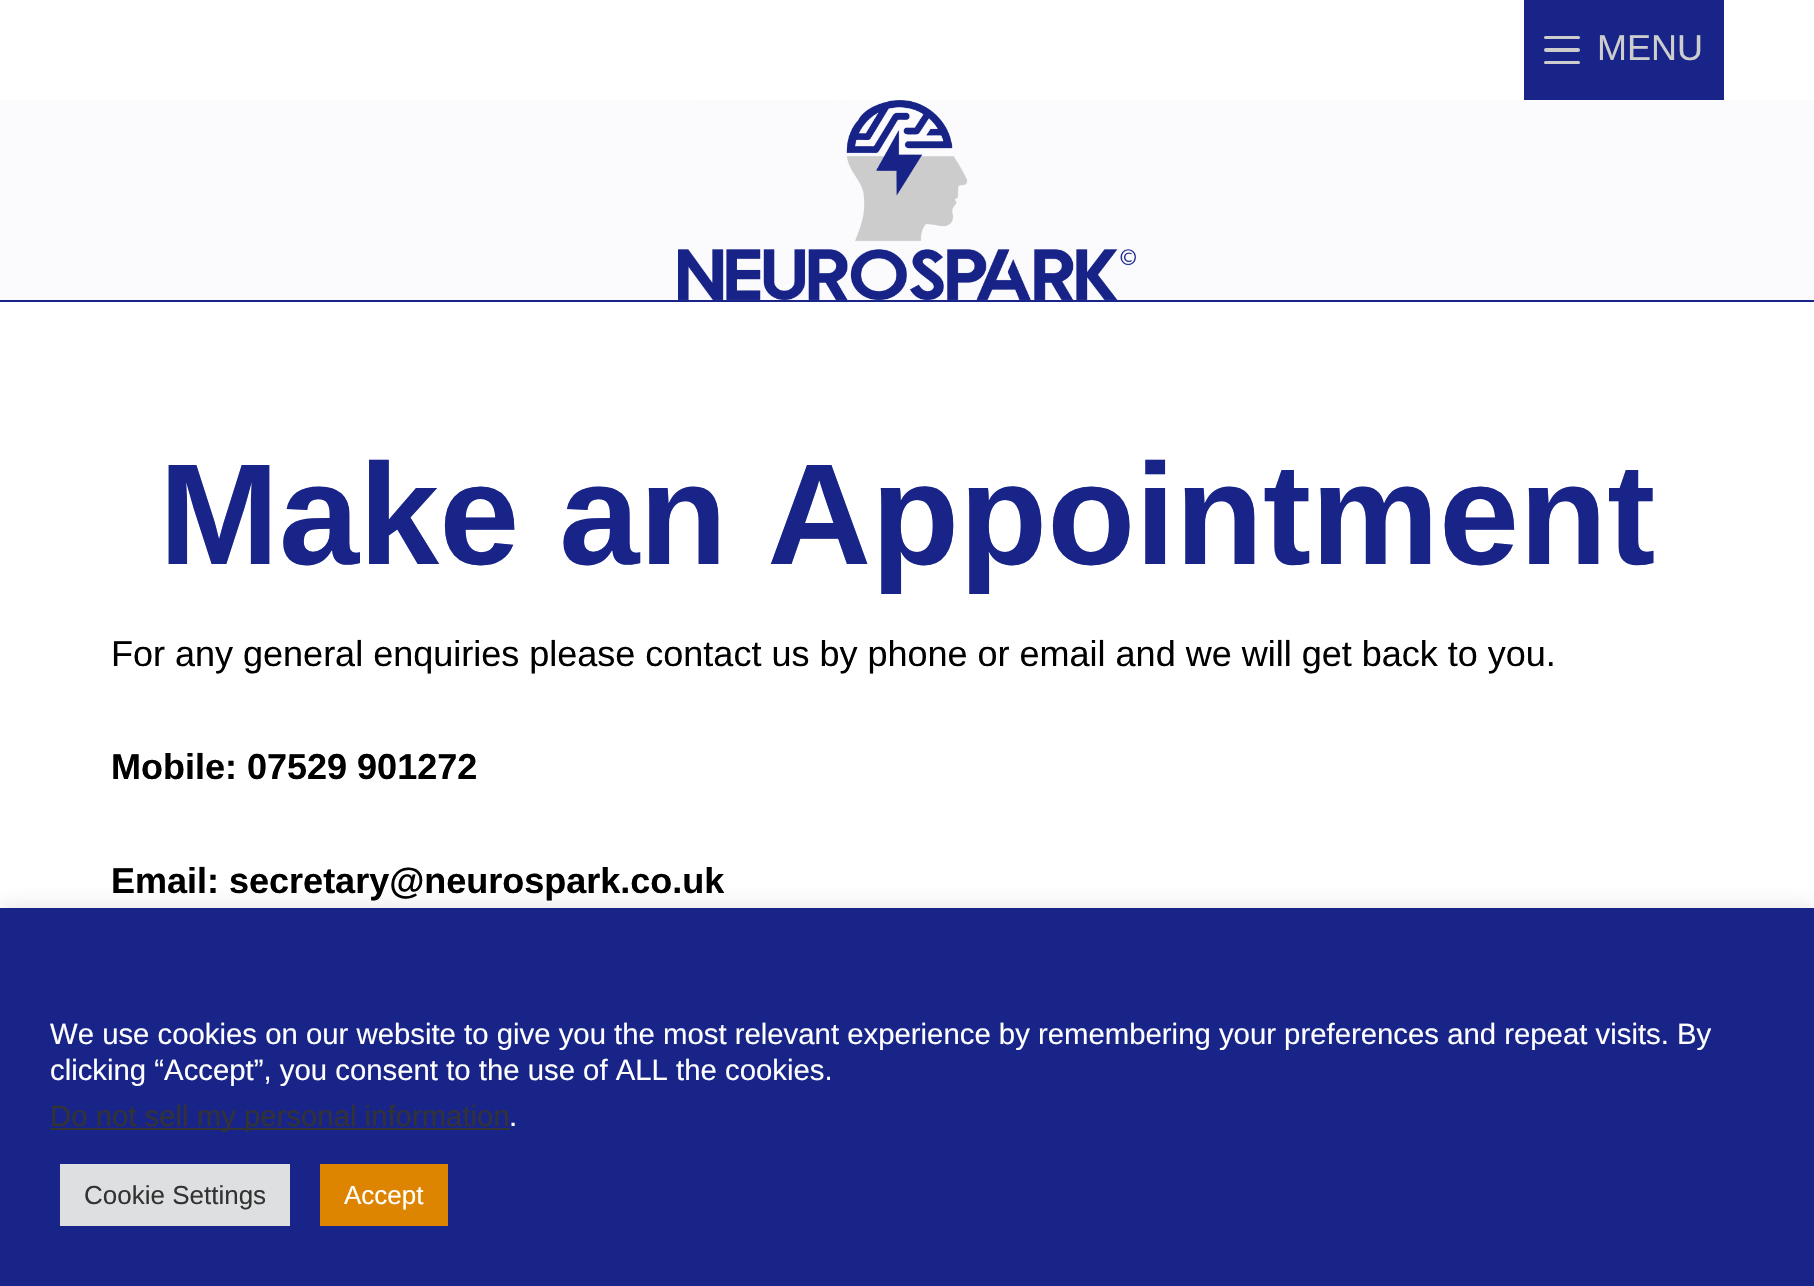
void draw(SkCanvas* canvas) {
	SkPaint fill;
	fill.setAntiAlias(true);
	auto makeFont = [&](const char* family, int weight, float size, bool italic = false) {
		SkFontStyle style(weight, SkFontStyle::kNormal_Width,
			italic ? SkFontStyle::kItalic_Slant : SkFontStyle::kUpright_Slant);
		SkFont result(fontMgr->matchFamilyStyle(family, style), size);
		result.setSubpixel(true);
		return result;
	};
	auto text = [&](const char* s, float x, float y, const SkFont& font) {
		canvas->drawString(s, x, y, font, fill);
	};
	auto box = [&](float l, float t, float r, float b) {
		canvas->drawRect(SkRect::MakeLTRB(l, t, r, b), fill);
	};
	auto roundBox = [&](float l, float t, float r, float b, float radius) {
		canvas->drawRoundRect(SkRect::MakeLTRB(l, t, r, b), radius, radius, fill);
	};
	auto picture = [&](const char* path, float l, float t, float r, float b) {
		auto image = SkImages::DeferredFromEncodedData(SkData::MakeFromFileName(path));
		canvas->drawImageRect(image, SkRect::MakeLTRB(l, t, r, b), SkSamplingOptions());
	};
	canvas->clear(0xFFFFFFFF);
	fill.setColor(0xFF182488);
	box(1524, 0, 1724, 100);
	fill.setColor(0xFFCDCDCD);
	roundBox(1544, 36, 1580, 39, 1.5f);
	roundBox(1544, 48, 1580, 52, 2);
	roundBox(1544, 61, 1580, 64, 1.5f);
	fill.setColor(0xFFFBFBFD);
	box(0, 100, 1814, 300);
	fill.setColor(0xFF182488);
	box(0, 300, 1814, 302);
	picture("image0.png", 678, 100, 1136, 300);
	fill.setColor(0x4DACABAB);
	fill.setMaskFilter(SkMaskFilter::MakeBlur(kNormal_SkBlurStyle, 10));
	canvas->drawRect(SkRect::MakeLTRB(0, 906, 1814, 1284), fill);
	fill.setMaskFilter(nullptr);
	fill.setColor(0xFF182488);
	box(0, 908, 1814, 1286);
	fill.setColor(0xFF333333);
	box(50, 1128, 510, 1130);
	fill.setColor(0xFFDEDFE0);
	box(60, 1164, 290, 1226);
	fill.setColor(0xFFDD8500);
	box(320, 1164, 448, 1226);
	auto font1 = makeFont("Liberation Sans", 400, 36);
	fill.setColor(0xFFCDCDCD);
	text("MENU", 1597, 60, font1);
	auto font2 = makeFont("Liberation Sans", 700, 144);
	fill.setColor(0xFF182488);
	text("Make an Appointment", 159, 564, font2);
	fill.setColor(0xFF000000);
	text("For any general enquiries please contact us by phone or email and we will get back to you.", 111, 666, font1);
	auto font3 = makeFont("Liberation Sans", 700, 36);
	text("Mobile: 07529 901272", 111, 779, font3);
	text("Email: secretary@neurospark.co.uk", 111, 893, font3);
	auto font4 = makeFont("Liberation Sans", 400, 29.33f);
	fill.setColor(0xFFFFFFFF);
	text("We use cookies on our website to give you the most relevant experience by remembering your preferences and repeat visits. By", 50, 1044, font4);
	text("clicking “Accept”, you consent to the use of ALL the cookies.", 50, 1080, font4);
	fill.setColor(0xFF333333);
	text("Do not sell my personal information", 50, 1126, font4);
	fill.setColor(0xFFFFFFFF);
	text(".", 509, 1126, font4);
	auto font5 = makeFont("Liberation Sans", 400, 26);
	fill.setColor(0xFF333333);
	text("Cookie Settings", 84, 1204, font5);
	fill.setColor(0xFFFFFFFF);
	text("Accept", 344, 1204, font5);
}
